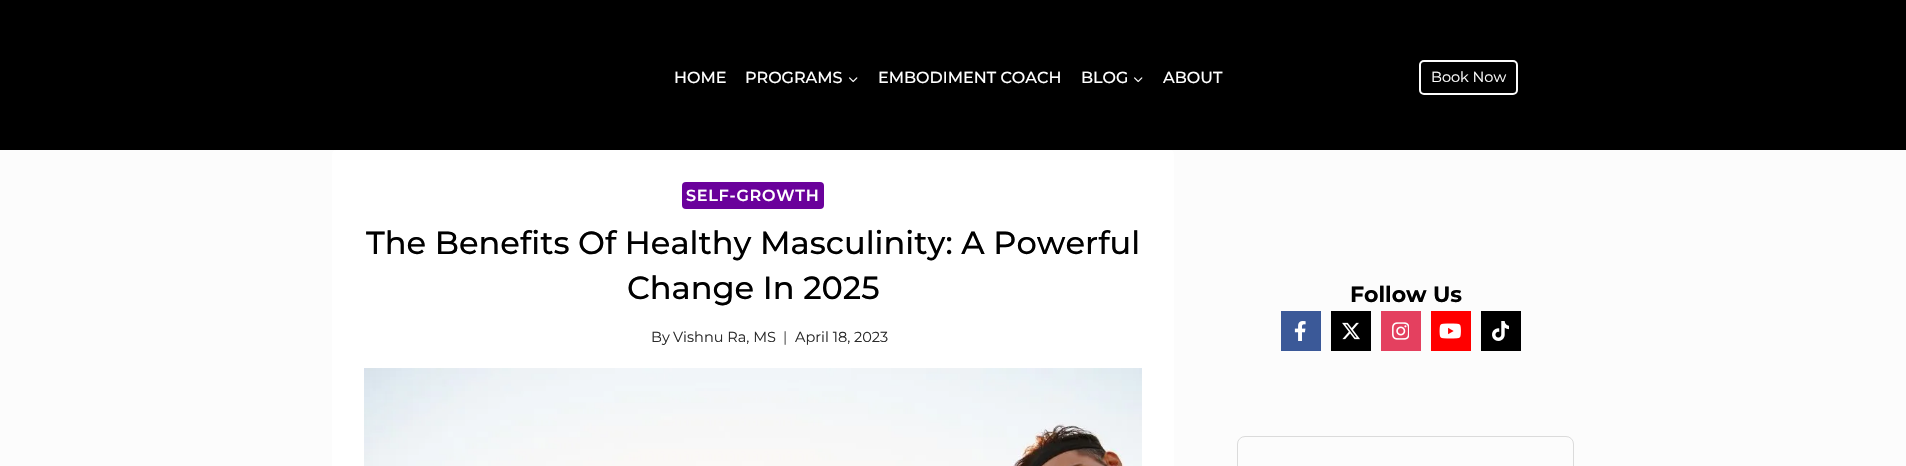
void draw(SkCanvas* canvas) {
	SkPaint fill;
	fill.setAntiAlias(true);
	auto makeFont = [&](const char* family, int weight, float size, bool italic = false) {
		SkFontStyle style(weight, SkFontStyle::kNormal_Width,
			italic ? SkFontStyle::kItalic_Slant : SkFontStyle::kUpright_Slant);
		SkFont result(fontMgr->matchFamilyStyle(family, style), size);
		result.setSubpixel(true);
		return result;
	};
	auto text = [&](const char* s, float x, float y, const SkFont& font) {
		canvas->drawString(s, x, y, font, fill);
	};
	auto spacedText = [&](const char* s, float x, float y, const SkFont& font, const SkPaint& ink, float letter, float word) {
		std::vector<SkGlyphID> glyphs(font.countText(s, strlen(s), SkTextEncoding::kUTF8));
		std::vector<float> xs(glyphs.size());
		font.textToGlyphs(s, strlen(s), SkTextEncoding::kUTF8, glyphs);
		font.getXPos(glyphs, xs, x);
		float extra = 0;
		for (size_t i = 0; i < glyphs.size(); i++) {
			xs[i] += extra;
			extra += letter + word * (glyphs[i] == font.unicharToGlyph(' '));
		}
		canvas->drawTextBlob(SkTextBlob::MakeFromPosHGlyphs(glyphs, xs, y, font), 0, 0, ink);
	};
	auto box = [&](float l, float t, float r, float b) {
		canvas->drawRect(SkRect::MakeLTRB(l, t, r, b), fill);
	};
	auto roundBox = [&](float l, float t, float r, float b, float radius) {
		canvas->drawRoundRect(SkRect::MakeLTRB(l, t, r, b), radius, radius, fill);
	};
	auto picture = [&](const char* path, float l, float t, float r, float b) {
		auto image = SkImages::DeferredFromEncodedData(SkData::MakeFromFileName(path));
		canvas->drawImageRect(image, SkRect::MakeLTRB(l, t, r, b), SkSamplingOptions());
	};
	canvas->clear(0xFFFCFCFC);
	fill.setColor(0xFF000000);
	box(0, 0, 1906, 150);
	picture("image0.png", 849, 77, 858, 83);
	picture("image0.png", 1134, 77, 1143, 83);
	fill.setStyle(SkPaint::kStroke_Style);
	fill.setStrokeWidth(2);
	fill.setColor(0xFFFCFCFC);
	canvas->drawRoundRect(SkRect::MakeLTRB(1420, 61, 1517, 94), 4, 4, fill);
	fill.setStyle(SkPaint::kFill_Style);
	fill.setColor(0xFFFFFFFF);
	roundBox(332, 150, 1174, 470, 4);
	fill.setColor(0xFF6A019B);
	roundBox(682, 182, 824, 209, 4);
	picture("image1.png", 364, 368, 1142, 466);
	fill.setColor(0xFF3B5998);
	box(1281, 311, 1321, 351);
	picture("image2.png", 1294, 321, 1306, 341);
	fill.setColor(0xFF000000);
	box(1331, 311, 1371, 351);
	picture("image3.png", 1342, 322, 1360, 340);
	fill.setColor(0xFFE4405F);
	box(1381, 311, 1421, 351);
	picture("image4.png", 1392, 322, 1409, 340);
	fill.setColor(0xFFFF0000);
	box(1431, 311, 1471, 351);
	picture("image5.png", 1439, 323, 1461, 339);
	fill.setColor(0xFF000000);
	box(1481, 311, 1521, 351);
	picture("image6.png", 1492, 321, 1509, 341);
	fill.setStyle(SkPaint::kStroke_Style);
	fill.setStrokeWidth(1);
	fill.setColor(0xFFDBDBDB);
	canvas->drawRoundRect(SkRect::MakeLTRB(1237.5f, 436.5f, 1573.5f, 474.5f), 7.5f, 7.5f, fill);
	auto font1 = makeFont("Montserrat", 500, 16);
	fill.setStyle(SkPaint::kFill_Style);
	fill.setColor(0xFFFFFFFF);
	text("HOME", 674, 83, font1);
	text("PROGRAMS", 745, 83, font1);
	text("EMBODIMENT COACH", 878, 83, font1);
	text("BLOG", 1081, 83, font1);
	text("ABOUT", 1163, 83, font1);
	auto font2 = makeFont("Montserrat", 400, 14.5f);
	text("Book Now", 1431, 82, font2);
	auto font3 = makeFont("Montserrat", 600, 16);
	spacedText("SELF-GROWTH", 686, 201, font3, fill, 0.75f, 0);
	auto font4 = makeFont("Montserrat", 500, 32);
	fill.setColor(0xFF000000);
	text("The Benefits Of Healthy Masculinity: A Powerful", 366, 254, font4);
	text("Change In 2025", 627, 299, font4);
	fill.setColor(0xFF2B2B2B);
	text("By", 651, 342, font2);
	text("Vishnu Ra, MS", 673, 342, font2);
	fill.setColor(0xFF555555);
	text("|", 783, 342, font2);
	fill.setColor(0xFF2B2B2B);
	text("April 18, 2023", 795, 342, font2);
	auto font5 = makeFont("Montserrat", 700, 22);
	fill.setColor(0xFF000000);
	text("Follow Us", 1350, 302, font5);
}
